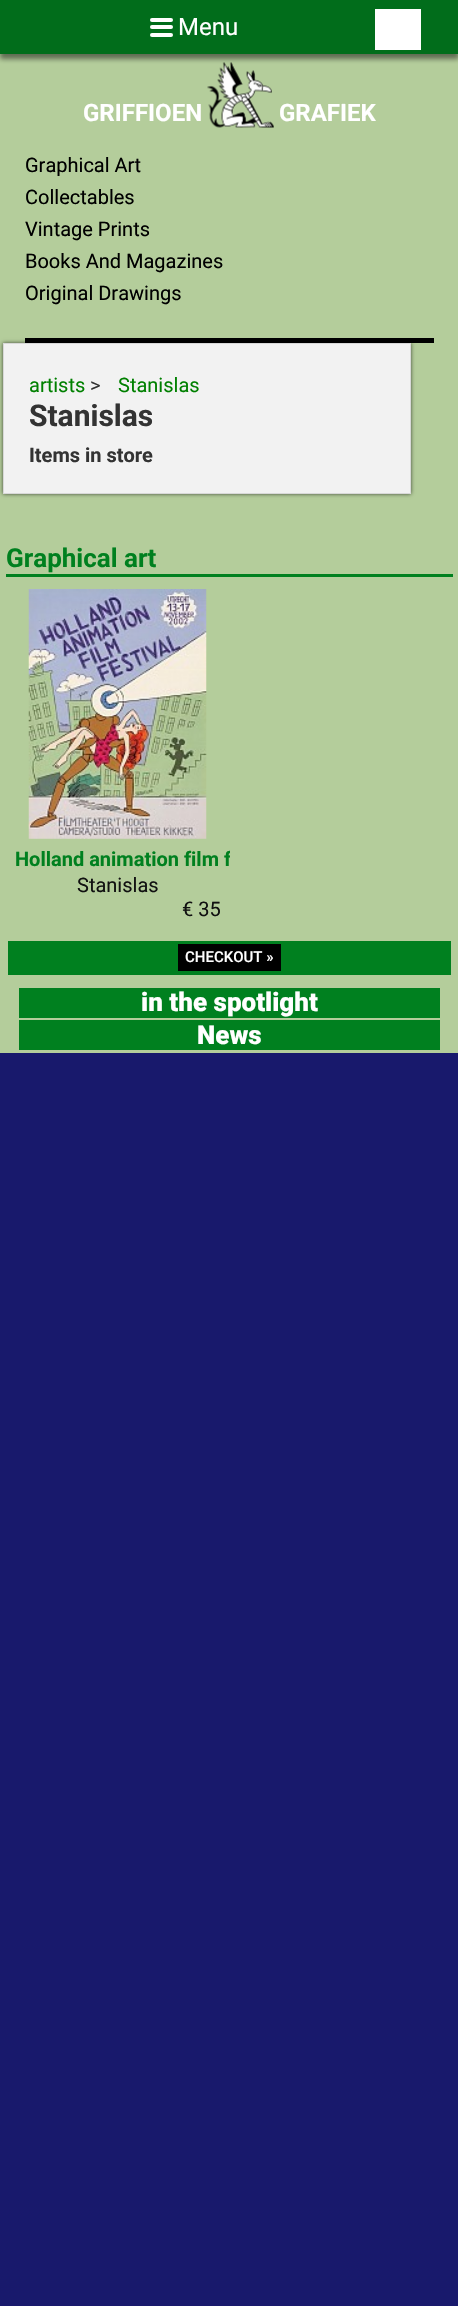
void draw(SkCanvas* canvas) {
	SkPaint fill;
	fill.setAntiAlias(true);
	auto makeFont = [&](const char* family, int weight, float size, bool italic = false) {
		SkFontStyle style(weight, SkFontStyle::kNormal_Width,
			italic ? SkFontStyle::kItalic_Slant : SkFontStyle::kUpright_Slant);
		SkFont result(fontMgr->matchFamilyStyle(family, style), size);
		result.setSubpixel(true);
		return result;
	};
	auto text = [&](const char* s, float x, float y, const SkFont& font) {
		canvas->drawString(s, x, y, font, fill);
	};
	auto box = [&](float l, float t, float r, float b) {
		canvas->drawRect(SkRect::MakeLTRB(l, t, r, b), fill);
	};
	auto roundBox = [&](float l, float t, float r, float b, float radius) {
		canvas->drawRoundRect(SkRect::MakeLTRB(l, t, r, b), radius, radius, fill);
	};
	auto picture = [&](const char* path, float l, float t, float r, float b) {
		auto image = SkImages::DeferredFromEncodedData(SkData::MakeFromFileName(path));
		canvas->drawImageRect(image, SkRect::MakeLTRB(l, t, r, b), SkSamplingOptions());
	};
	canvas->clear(0xFF18196C);
	fill.setColor(0xFFB4CD9B);
	box(0, 54, 458, 1053);
	picture("image0.png", 207, 62, 274, 128);
	fill.setColor(0x800A0A0A);
	fill.setMaskFilter(SkMaskFilter::MakeBlur(kNormal_SkBlurStyle, 2.5f));
	canvas->drawRect(SkRect::MakeLTRB(0, 5, 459, 59), fill);
	fill.setMaskFilter(nullptr);
	fill.setColor(0xFF016D1B);
	box(0, 0, 458, 54);
	fill.setColor(0xFFFFFFFF);
	roundBox(150, 18, 173, 22, 2);
	roundBox(150, 25, 173, 29, 2);
	roundBox(150, 33, 173, 37, 2);
	box(375, 9, 421, 50);
	fill.setColor(0xFF000000);
	box(25, 338, 434, 343);
	fill.setColor(0xA6000000);
	fill.setMaskFilter(SkMaskFilter::MakeBlur(kNormal_SkBlurStyle, 2));
	canvas->drawRect(SkRect::MakeLTRB(3, 343, 411, 494), fill);
	fill.setMaskFilter(nullptr);
	fill.setColor(0xFFF2F2F2);
	canvas->drawRect(SkRect::MakeLTRB(3.5f, 343.5f, 410.5f, 493.5f), fill);
	fill.setStyle(SkPaint::kStroke_Style);
	fill.setStrokeWidth(1);
	fill.setColor(0xFFD8D8D8);
	canvas->drawRect(SkRect::MakeLTRB(3.5f, 343.5f, 410.5f, 493.5f), fill);
	fill.setStyle(SkPaint::kFill_Style);
	fill.setColor(0xFF00801F);
	box(6, 574, 453, 577);
	picture("image1.png", 28, 589, 207, 839);
	box(8, 941, 451, 975);
	fill.setColor(0xFF000000);
	box(178, 944, 281, 971);
	fill.setColor(0xFF00801F);
	box(19, 988, 440, 1018);
	box(19, 1020, 440, 1050);
	auto font1 = makeFont("Roboto", 400, 24);
	fill.setColor(0xFFFFFFFF);
	text("Menu", 178, 35, font1);
	auto font2 = makeFont("Roboto", 700, 24);
	text("GRIFFIOEN", 83, 121, font2);
	text("GRAFIEK", 279, 121, font2);
	auto font3 = makeFont("Roboto", 400, 20);
	fill.setColor(0xFF000000);
	text("Graphical Art", 25, 172, font3);
	text("Collectables", 25, 204, font3);
	text("Vintage Prints", 25, 236, font3);
	text("Books And Magazines", 25, 268, font3);
	text("Original Drawings", 25, 300, font3);
	fill.setColor(0xFF008000);
	text("artists", 29, 392, font3);
	fill.setColor(0xFF333333);
	text(">", 90, 392, font3);
	fill.setColor(0xFF008000);
	text("Stanislas", 118, 392, font3);
	auto font4 = makeFont("Roboto", 700, 30);
	fill.setColor(0xFF333333);
	text("Stanislas", 29, 426, font4);
	auto font5 = makeFont("Roboto", 700, 20);
	text("Items in store", 29, 462, font5);
	auto font6 = makeFont("Roboto", 700, 26);
	fill.setColor(0xFF00801F);
	text("Graphical art", 6, 567, font6);
	canvas->save();
	canvas->clipRect(SkRect::MakeLTRB(6, 589, 230, 943));
	text("Holland animation film f", 15, 866, font5);
	canvas->restore();
	fill.setColor(0xFF111111);
	text("Stanislas", 77, 892, font3);
	text("€ 35", 182, 916, font3);
	auto font7 = makeFont("Roboto", 500, 15);
	fill.setColor(0xFFFFFFFF);
	text("CHECKOUT »", 185, 962, font7);
	auto font8 = makeFont("Roboto", 900, 26);
	text("in the spotlight", 141, 1011, font8);
	text("News", 197, 1044, font8);
}
